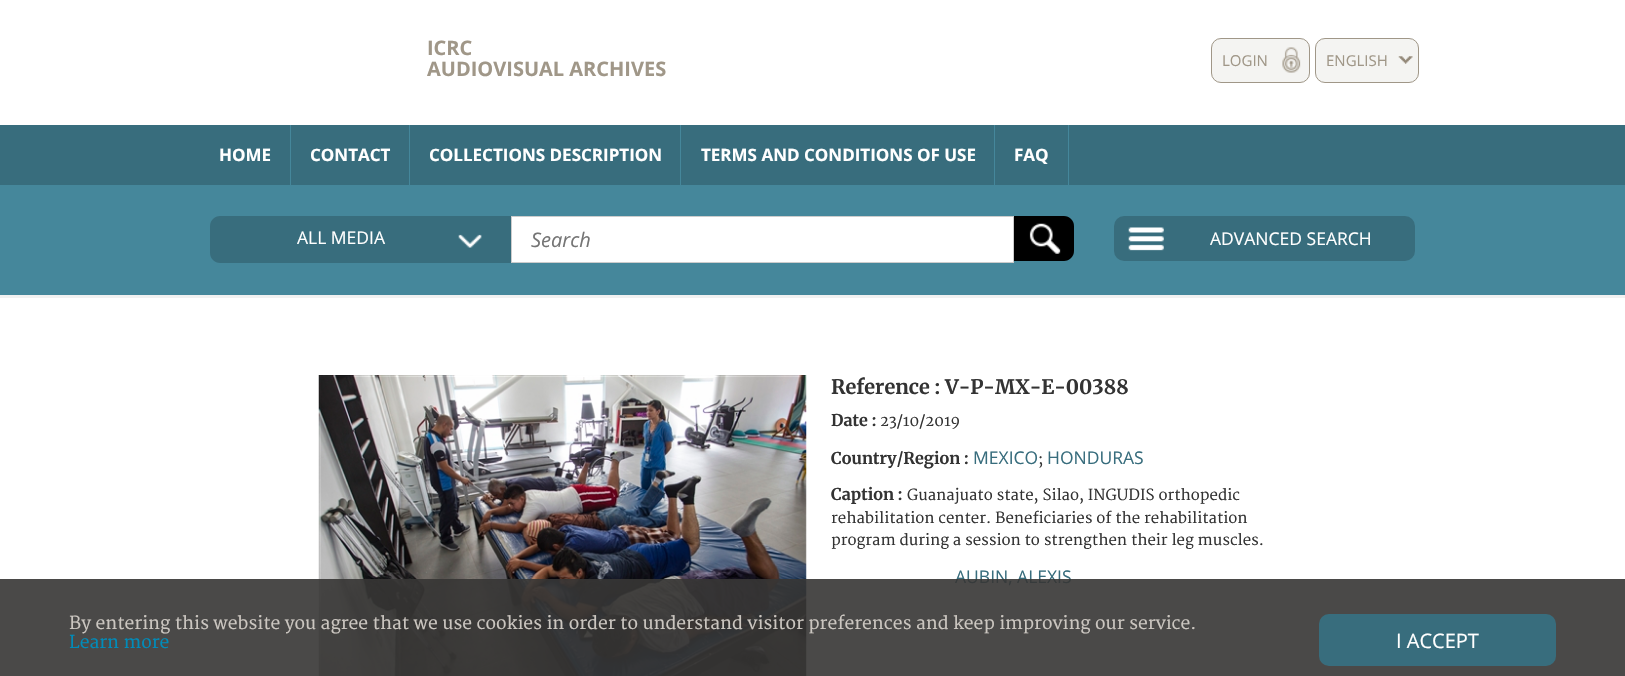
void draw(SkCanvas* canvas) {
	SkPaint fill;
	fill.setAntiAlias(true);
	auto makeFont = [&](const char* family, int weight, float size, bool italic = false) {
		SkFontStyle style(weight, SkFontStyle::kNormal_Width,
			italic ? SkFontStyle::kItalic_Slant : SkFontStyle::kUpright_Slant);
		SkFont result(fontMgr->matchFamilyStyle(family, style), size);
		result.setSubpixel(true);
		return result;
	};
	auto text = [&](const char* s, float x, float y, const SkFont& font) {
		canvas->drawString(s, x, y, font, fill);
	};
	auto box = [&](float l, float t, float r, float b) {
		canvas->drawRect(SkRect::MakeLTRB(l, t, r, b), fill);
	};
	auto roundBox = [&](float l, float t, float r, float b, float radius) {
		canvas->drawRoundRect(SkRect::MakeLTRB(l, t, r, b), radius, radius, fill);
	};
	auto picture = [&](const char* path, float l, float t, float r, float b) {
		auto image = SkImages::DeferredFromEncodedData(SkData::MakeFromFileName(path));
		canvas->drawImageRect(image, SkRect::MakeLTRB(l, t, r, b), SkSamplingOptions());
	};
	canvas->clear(0xFFFFFFFF);
	fill.setColor(0xFFF4F4F2);
	roundBox(1211, 38, 1310, 83, 10);
	picture("image0.png", 1282, 47, 1301, 73);
	fill.setStyle(SkPaint::kStroke_Style);
	fill.setStrokeWidth(1);
	fill.setColor(0xFFA09788);
	canvas->drawRoundRect(SkRect::MakeLTRB(1211.5f, 38.5f, 1309.5f, 82.5f), 9.5f, 9.5f, fill);
	fill.setStyle(SkPaint::kFill_Style);
	fill.setColor(0xFFF4F4F2);
	roundBox(1315, 38, 1419, 83, 10);
	picture("image1.png", 1398, 56, 1413, 64);
	fill.setStyle(SkPaint::kStroke_Style);
	fill.setColor(0xFFA09788);
	canvas->drawRoundRect(SkRect::MakeLTRB(1315.5f, 38.5f, 1418.5f, 82.5f), 9.5f, 9.5f, fill);
	fill.setStyle(SkPaint::kFill_Style);
	fill.setColor(0xFF386D7D);
	box(0, 125, 1625, 185);
	fill.setColor(0xFF45879B);
	box(290, 125, 291, 185);
	box(409, 125, 410, 185);
	box(680, 125, 681, 185);
	box(994, 125, 995, 185);
	box(1068, 125, 1069, 185);
	box(0, 185, 1625, 295);
	fill.setColor(0xFFF1F1F1);
	box(0, 295, 1625, 298);
	fill.setColor(0xFF386D7D);
	canvas->drawPath(SkPathBuilder().moveTo(220, 216).lineTo(511, 216).lineTo(511, 263).lineTo(220, 263).cubicTo(214.5f, 263, 210, 258.5f, 210, 253).lineTo(210, 226).cubicTo(210, 220.5f, 214.5f, 216, 220, 216).close().detach(), fill);
	picture("image2.png", 458, 234, 482, 248);
	fill.setColor(0xFFFFFFFF);
	canvas->drawRect(SkRect::MakeLTRB(511.5f, 216.5f, 1013.5f, 262.5f), fill);
	fill.setStyle(SkPaint::kStroke_Style);
	fill.setColor(0xFFCCCCCC);
	canvas->drawRect(SkRect::MakeLTRB(511.5f, 216.5f, 1013.5f, 262.5f), fill);
	fill.setStyle(SkPaint::kFill_Style);
	fill.setColor(0xFF000000);
	canvas->drawPath(SkPathBuilder().moveTo(1014, 216).lineTo(1064, 216).cubicTo(1069.5f, 216, 1074, 220.5f, 1074, 226).lineTo(1074, 251).cubicTo(1074, 256.5f, 1069.5f, 261, 1064, 261).lineTo(1014, 261).close().detach(), fill);
	picture("image3.png", 1029, 223, 1061, 254);
	fill.setColor(0xFF386D7D);
	roundBox(1114, 216, 1415, 261, 10);
	picture("image4.png", 1128, 227, 1164, 251);
	picture("image5.png", 318, 375, 807, 676);
	auto font1 = makeFont("Open Sans", 700, 20);
	fill.setColor(0xFFA09788);
	text("ICRC", 427, 55, font1);
	text("AUDIOVISUAL ARCHIVES", 427, 76, font1);
	auto font2 = makeFont("Open Sans", 400, 15);
	text("LOGIN", 1222, 66, font2);
	text("ENGLISH", 1326, 66, font2);
	auto font3 = makeFont("Open Sans", 700, 17);
	fill.setColor(0xFFFFFFFF);
	text("HOME", 219, 161, font3);
	text("CONTACT", 310, 161, font3);
	text("COLLECTIONS DESCRIPTION", 429, 161, font3);
	text("TERMS AND CONDITIONS OF USE", 701, 161, font3);
	text("FAQ", 1014, 161, font3);
	auto font4 = makeFont("Open Sans", 400, 17.5f);
	text("ALL MEDIA", 297, 244, font4);
	auto font5 = makeFont("Open Sans", 400, 20, true);
	fill.setColor(0xFF757575);
	text("Search", 531, 247, font5);
	fill.setColor(0xFFFFFFFF);
	text("ADVANCED SEARCH", 1210, 245, font4);
	auto font6 = makeFont("Merriweather", 700, 20);
	fill.setColor(0xFF333333);
	text("Reference : V-P-MX-E-00388", 831, 394, font6);
	auto font7 = makeFont("Merriweather", 700, 16.25f);
	text("Date :", 831, 426, font7);
	auto font8 = makeFont("Merriweather", 400, 15);
	text("23/10/2019", 880, 426, font8);
	text("Country/Region :", 831, 464, font7);
	fill.setColor(0xFF386D7D);
	text("MEXICO", 973, 464, font4);
	fill.setColor(0xFF333333);
	text(";", 1038, 464, font8);
	fill.setColor(0xFF386D7D);
	text("HONDURAS", 1047, 464, font4);
	fill.setColor(0xFF333333);
	text("Caption :", 831, 500, font7);
	text("Guanajuato state, Silao, INGUDIS orthopedic", 907, 500, font8);
	text("rehabilitation center. Beneficiaries of the rehabilitation", 831, 523, font8);
	text("program during a session to strengthen their leg muscles.", 831, 545, font8);
	fill.setColor(0xFF386D7D);
	text("AUBIN, ALEXIS", 955, 583, font4);
	fill.setColor(0xE6363534);
	box(0, 579, 1625, 676);
	auto font9 = makeFont("Merriweather", 400, 17.5f);
	fill.setColor(0xFFCBC6C0);
	text("By entering this website you agree that we use cookies in order to understand visitor preferences and keep improving our service.", 69, 629, font9);
	fill.setColor(0xFF008CBA);
	text("Learn more", 69, 648, font9);
	fill.setColor(0xFF386D7D);
	roundBox(1319, 614, 1556, 666, 10);
	auto font10 = makeFont("Open Sans", 400, 20);
	fill.setColor(0xFFFFFFFF);
	text("I ACCEPT", 1396, 648, font10);
}
